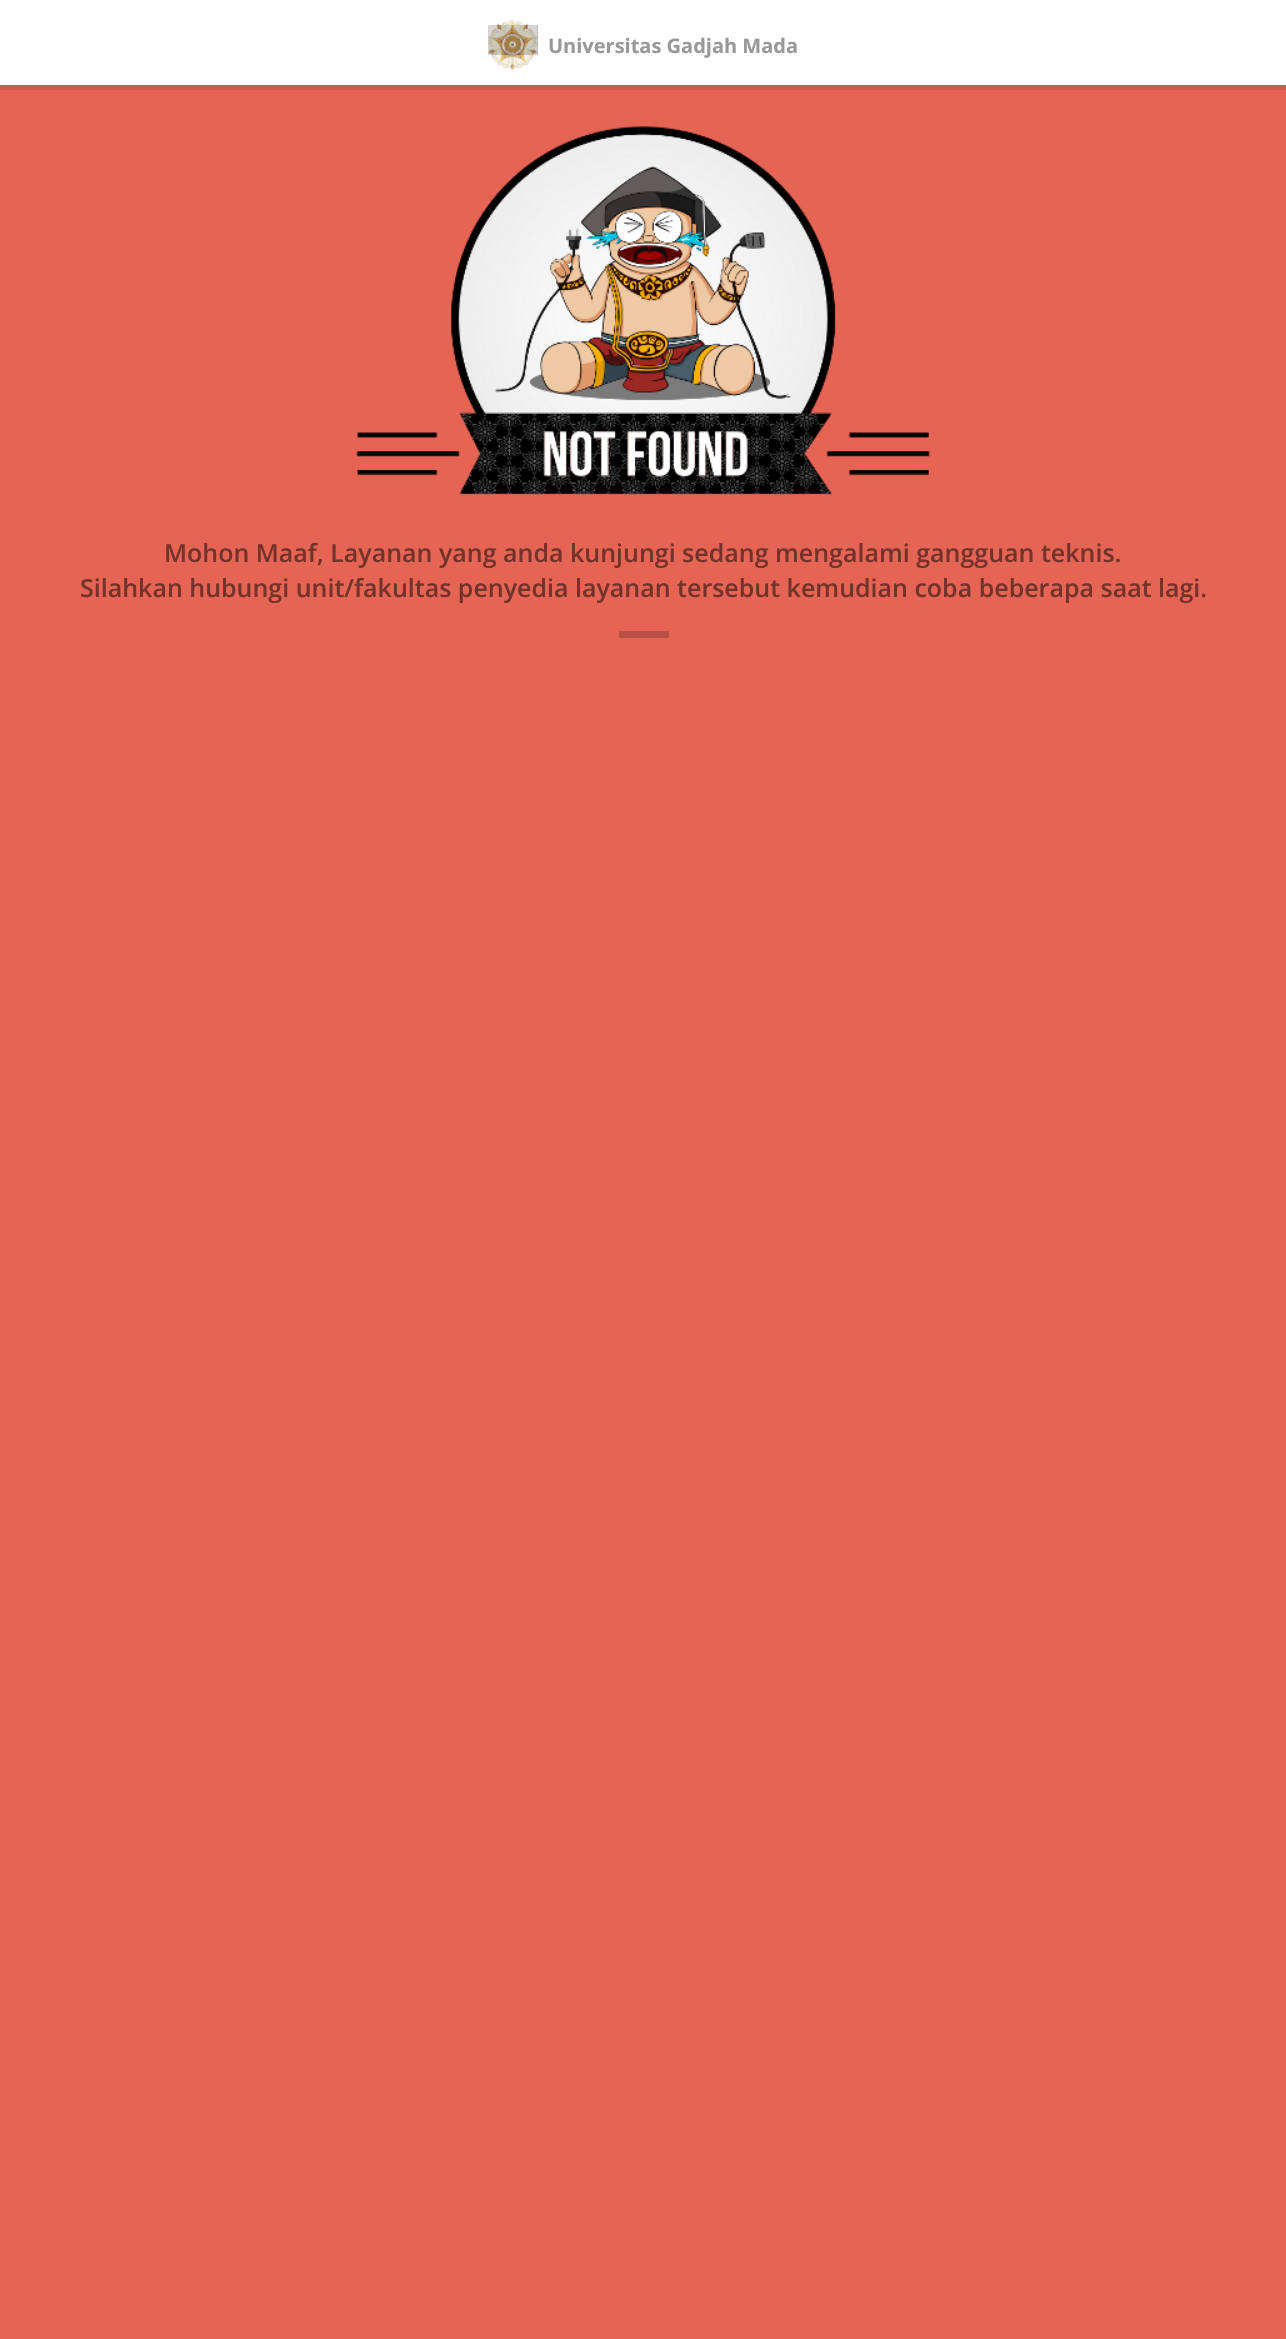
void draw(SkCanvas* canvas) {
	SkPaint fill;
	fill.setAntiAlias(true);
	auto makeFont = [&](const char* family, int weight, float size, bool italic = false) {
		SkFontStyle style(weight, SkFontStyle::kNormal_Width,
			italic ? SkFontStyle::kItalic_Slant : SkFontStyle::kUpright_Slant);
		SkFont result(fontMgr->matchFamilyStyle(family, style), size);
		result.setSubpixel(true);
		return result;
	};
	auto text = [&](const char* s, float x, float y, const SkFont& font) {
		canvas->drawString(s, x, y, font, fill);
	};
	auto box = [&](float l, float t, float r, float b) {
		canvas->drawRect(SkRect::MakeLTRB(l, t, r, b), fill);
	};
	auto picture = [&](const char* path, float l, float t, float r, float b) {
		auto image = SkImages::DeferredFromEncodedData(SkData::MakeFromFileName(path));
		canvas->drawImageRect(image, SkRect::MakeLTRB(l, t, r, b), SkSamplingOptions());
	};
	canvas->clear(0xFFE66454);
	fill.setColor(0xFFCF5A4C);
	box(0, 85, 1286, 90);
	fill.setColor(0xFFFFFFFF);
	box(0, 0, 1286, 85);
	fill.setColor(0xFF999999);
	box(488, 25, 538, 55);
	picture("image0.png", 487, 19, 538, 70);
	picture("image1.png", 356, 126, 931, 495);
	fill.setColor(0xFFB85043);
	box(619, 631, 669, 638);
	auto font1 = makeFont("Open Sans", 700, 20);
	fill.setColor(0xFF999999);
	text("Universitas Gadjah Mada", 548, 53, font1);
	auto font2 = makeFont("Open Sans", 600, 25);
	fill.setColor(0xFF73322A);
	text("Mohon Maaf, Layanan yang anda kunjungi sedang mengalami gangguan teknis.", 164, 562, font2);
	text("Silahkan hubungi unit/fakultas penyedia layanan tersebut kemudian coba beberapa saat lagi.", 80, 597, font2);
}
